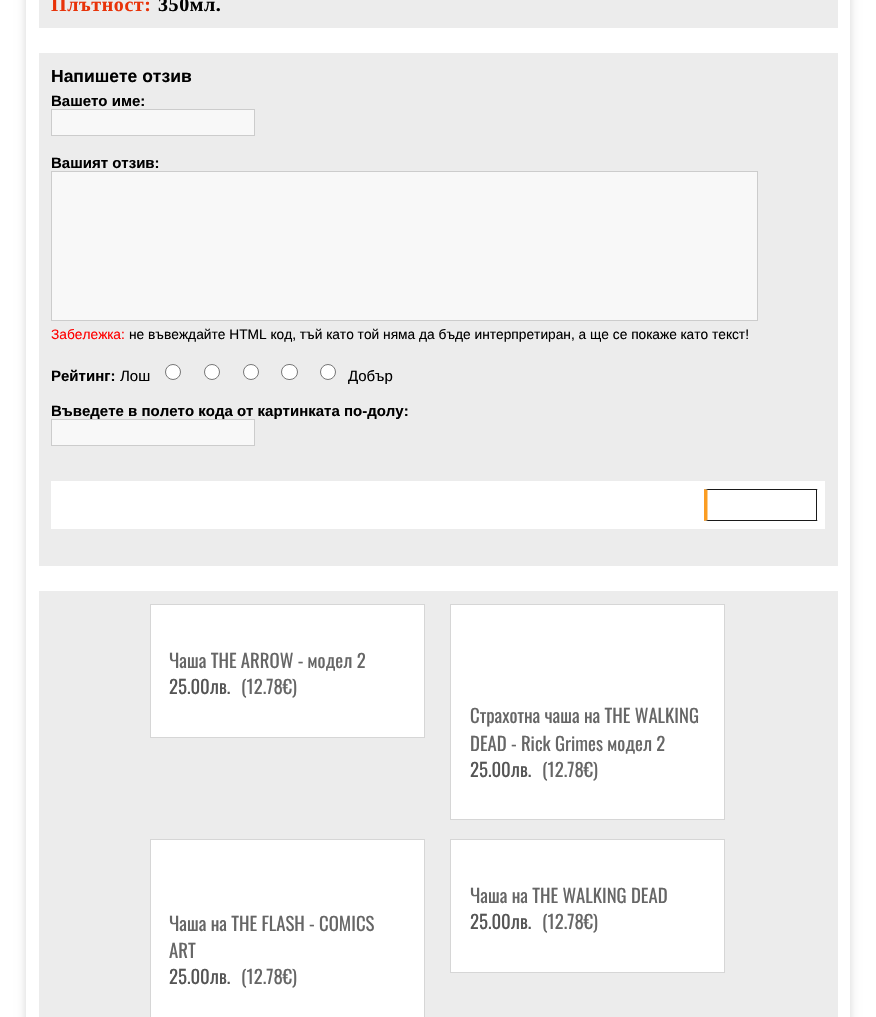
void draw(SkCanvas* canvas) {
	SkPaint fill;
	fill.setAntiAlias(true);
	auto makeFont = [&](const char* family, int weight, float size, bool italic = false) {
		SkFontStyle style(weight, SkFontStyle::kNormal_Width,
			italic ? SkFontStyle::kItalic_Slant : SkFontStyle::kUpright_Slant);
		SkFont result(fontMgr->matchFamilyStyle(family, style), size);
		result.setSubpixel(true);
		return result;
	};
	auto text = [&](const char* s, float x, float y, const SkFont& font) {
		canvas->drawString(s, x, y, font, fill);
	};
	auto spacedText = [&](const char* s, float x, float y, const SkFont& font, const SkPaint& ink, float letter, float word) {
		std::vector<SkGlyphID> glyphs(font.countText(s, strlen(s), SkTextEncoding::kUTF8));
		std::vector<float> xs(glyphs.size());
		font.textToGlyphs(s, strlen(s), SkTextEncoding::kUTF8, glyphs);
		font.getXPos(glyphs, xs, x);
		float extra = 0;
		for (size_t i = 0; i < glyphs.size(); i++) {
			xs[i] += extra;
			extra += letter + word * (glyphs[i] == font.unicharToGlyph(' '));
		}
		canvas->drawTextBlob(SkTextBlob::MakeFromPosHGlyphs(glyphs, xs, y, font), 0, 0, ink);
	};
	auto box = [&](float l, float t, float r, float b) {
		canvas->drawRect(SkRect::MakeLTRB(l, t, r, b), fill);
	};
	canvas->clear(0xFFFFFFFF);
	fill.setColor(0x29000000);
	fill.setMaskFilter(SkMaskFilter::MakeBlur(kNormal_SkBlurStyle, 4.5f));
	canvas->drawRect(SkRect::MakeLTRB(26, -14, 850, 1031), fill);
	fill.setMaskFilter(nullptr);
	fill.setColor(0xFFFFFFFF);
	box(26, 0, 850, 1017);
	fill.setColor(0xFFECECEC);
	box(39, 0, 838, 28);
	box(39, 53, 838, 566);
	fill.setColor(0xFFF8F8F8);
	canvas->drawRect(SkRect::MakeLTRB(51.5f, 109.5f, 254.5f, 135.5f), fill);
	fill.setStyle(SkPaint::kStroke_Style);
	fill.setStrokeWidth(1);
	fill.setColor(0xFFCCCCCC);
	canvas->drawRect(SkRect::MakeLTRB(51.5f, 109.5f, 254.5f, 135.5f), fill);
	fill.setStyle(SkPaint::kFill_Style);
	fill.setColor(0xFFF8F8F8);
	canvas->drawRect(SkRect::MakeLTRB(51.5f, 171.5f, 757.5f, 320.5f), fill);
	fill.setStyle(SkPaint::kStroke_Style);
	fill.setColor(0xFFCCCCCC);
	canvas->drawRect(SkRect::MakeLTRB(51.5f, 171.5f, 757.5f, 320.5f), fill);
	fill.setStyle(SkPaint::kFill_Style);
	fill.setColor(0xFFFFFFFF);
	canvas->drawCircle(173, 372, 7.5f, fill);
	fill.setStyle(SkPaint::kStroke_Style);
	fill.setColor(0xFF767676);
	canvas->drawCircle(173, 372, 7.5f, fill);
	fill.setStyle(SkPaint::kFill_Style);
	fill.setColor(0xFFFFFFFF);
	canvas->drawCircle(212, 372, 7.5f, fill);
	fill.setStyle(SkPaint::kStroke_Style);
	fill.setColor(0xFF767676);
	canvas->drawCircle(212, 372, 7.5f, fill);
	fill.setStyle(SkPaint::kFill_Style);
	fill.setColor(0xFFFFFFFF);
	canvas->drawCircle(251, 372, 7.5f, fill);
	fill.setStyle(SkPaint::kStroke_Style);
	fill.setColor(0xFF767676);
	canvas->drawCircle(251, 372, 7.5f, fill);
	fill.setStyle(SkPaint::kFill_Style);
	fill.setColor(0xFFFFFFFF);
	canvas->drawRoundRect(SkRect::MakeLTRB(281.5f, 364.5f, 297.5f, 379.5f), 7.5f, 7.5f, fill);
	fill.setStyle(SkPaint::kStroke_Style);
	fill.setColor(0xFF767676);
	canvas->drawRoundRect(SkRect::MakeLTRB(281.5f, 364.5f, 297.5f, 379.5f), 7.5f, 7.5f, fill);
	fill.setStyle(SkPaint::kFill_Style);
	fill.setColor(0xFFFFFFFF);
	canvas->drawCircle(328, 372, 7.5f, fill);
	fill.setStyle(SkPaint::kStroke_Style);
	fill.setColor(0xFF767676);
	canvas->drawCircle(328, 372, 7.5f, fill);
	fill.setStyle(SkPaint::kFill_Style);
	fill.setColor(0xFFFFFFFF);
	box(51, 481, 825, 529);
	fill.setColor(0xFF1A1A1A);
	canvas->drawPath(SkPathBuilder().moveTo(704, 489).lineTo(818, 489).lineTo(816, 490).lineTo(708, 490).close().detach(), fill);
	box(816, 489, 817, 521);
	canvas->drawPath(SkPathBuilder().moveTo(818, 521).lineTo(704, 521).lineTo(708, 520).lineTo(816, 520).close().detach(), fill);
	fill.setColor(0xFFFB9D23);
	canvas->drawPath(SkPathBuilder().moveTo(704, 521).lineTo(704, 489).lineTo(707.5f, 490).lineTo(707.5f, 520).close().detach(), fill);
	fill.setColor(0xFFECECEC);
	box(39, 591, 838, 1017);
	fill.setColor(0xFFFFFFFF);
	canvas->drawRect(SkRect::MakeLTRB(150.5f, 604.5f, 424.5f, 737.5f), fill);
	fill.setStyle(SkPaint::kStroke_Style);
	fill.setColor(0xFFD6D6D6);
	canvas->drawRect(SkRect::MakeLTRB(150.5f, 604.5f, 424.5f, 737.5f), fill);
	fill.setStyle(SkPaint::kFill_Style);
	fill.setColor(0xFFFFFFFF);
	canvas->drawRect(SkRect::MakeLTRB(450.5f, 604.5f, 724.5f, 819.5f), fill);
	fill.setStyle(SkPaint::kStroke_Style);
	fill.setColor(0xFFD6D6D6);
	canvas->drawRect(SkRect::MakeLTRB(450.5f, 604.5f, 724.5f, 819.5f), fill);
	fill.setStyle(SkPaint::kFill_Style);
	fill.setColor(0xFFFFFFFF);
	canvas->drawRect(SkRect::MakeLTRB(450.5f, 839.5f, 724.5f, 972.5f), fill);
	fill.setStyle(SkPaint::kStroke_Style);
	fill.setColor(0xFFD6D6D6);
	canvas->drawRect(SkRect::MakeLTRB(450.5f, 839.5f, 724.5f, 972.5f), fill);
	fill.setStyle(SkPaint::kFill_Style);
	fill.setColor(0xFFFFFFFF);
	canvas->drawRect(SkRect::MakeLTRB(150.5f, 839.5f, 424.5f, 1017.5f), fill);
	fill.setStyle(SkPaint::kStroke_Style);
	fill.setColor(0xFFD6D6D6);
	canvas->drawRect(SkRect::MakeLTRB(150.5f, 839.5f, 424.5f, 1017.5f), fill);
	auto font1 = makeFont("Liberation Serif", 700, 20);
	fill.setStyle(SkPaint::kFill_Style);
	fill.setColor(0xFFE83309);
	spacedText("Плътност:", 51, 11, font1, fill, 0.6f, 0);
	fill.setColor(0xFF000000);
	spacedText("350мл.", 158, 11, font1, fill, 0.6f, 0);
	auto font2 = makeFont("Liberation Sans", 700, 17.5f);
	text("Напишете отзив", 51, 82, font2);
	auto font3 = makeFont("Liberation Sans", 700, 15);
	text("Вашето име:", 51, 106, font3);
	text("Вашият отзив:", 51, 168, font3);
	auto font4 = makeFont("Liberation Sans", 400, 13.75f);
	fill.setColor(0xFFFF0000);
	text("Забележка:", 51, 339, font4);
	fill.setColor(0xFF000000);
	text("не въвеждайте HTML код, тъй като той няма да бъде интерпретиран, а ще се покаже като текст!", 129, 339, font4);
	text("Рейтинг:", 51, 381, font3);
	auto font5 = makeFont("Liberation Sans", 400, 15);
	text("Лош", 120, 381, font5);
	text("Добър", 348, 381, font5);
	text("Въведете в полето кода от картинката по-долу:", 51, 416, font3);
	fill.setColor(0xFFF8F8F8);
	canvas->drawRect(SkRect::MakeLTRB(51.5f, 419.5f, 254.5f, 445.5f), fill);
	fill.setStyle(SkPaint::kStroke_Style);
	fill.setColor(0xFFCCCCCC);
	canvas->drawRect(SkRect::MakeLTRB(51.5f, 419.5f, 254.5f, 445.5f), fill);
	auto font6 = makeFont("Oswald", 400, 18.75f);
	fill.setStyle(SkPaint::kFill_Style);
	fill.setColor(0xFF666666);
	text("Чаша THE ARROW - модел 2", 169, 668, font6);
	fill.setColor(0xFF555555);
	text("25.00лв.", 169, 694, font6);
	fill.setColor(0xFF666666);
	text("(12.78€)", 241, 694, font6);
	text("Страхотна чаша на THE WALKING", 470, 723, font6);
	text("DEAD - Rick Grimes модел 2", 470, 751, font6);
	fill.setColor(0xFF555555);
	text("25.00лв.", 470, 777, font6);
	fill.setColor(0xFF666666);
	text("(12.78€)", 542, 777, font6);
	text("Чаша на THE WALKING DEAD", 470, 903, font6);
	fill.setColor(0xFF555555);
	text("25.00лв.", 470, 929, font6);
	fill.setColor(0xFF666666);
	text("(12.78€)", 542, 929, font6);
	text("Чаша на THE FLASH - COMICS", 169, 931, font6);
	text("ART", 169, 958, font6);
	fill.setColor(0xFF555555);
	text("25.00лв.", 169, 984, font6);
	fill.setColor(0xFF666666);
	text("(12.78€)", 241, 984, font6);
}
